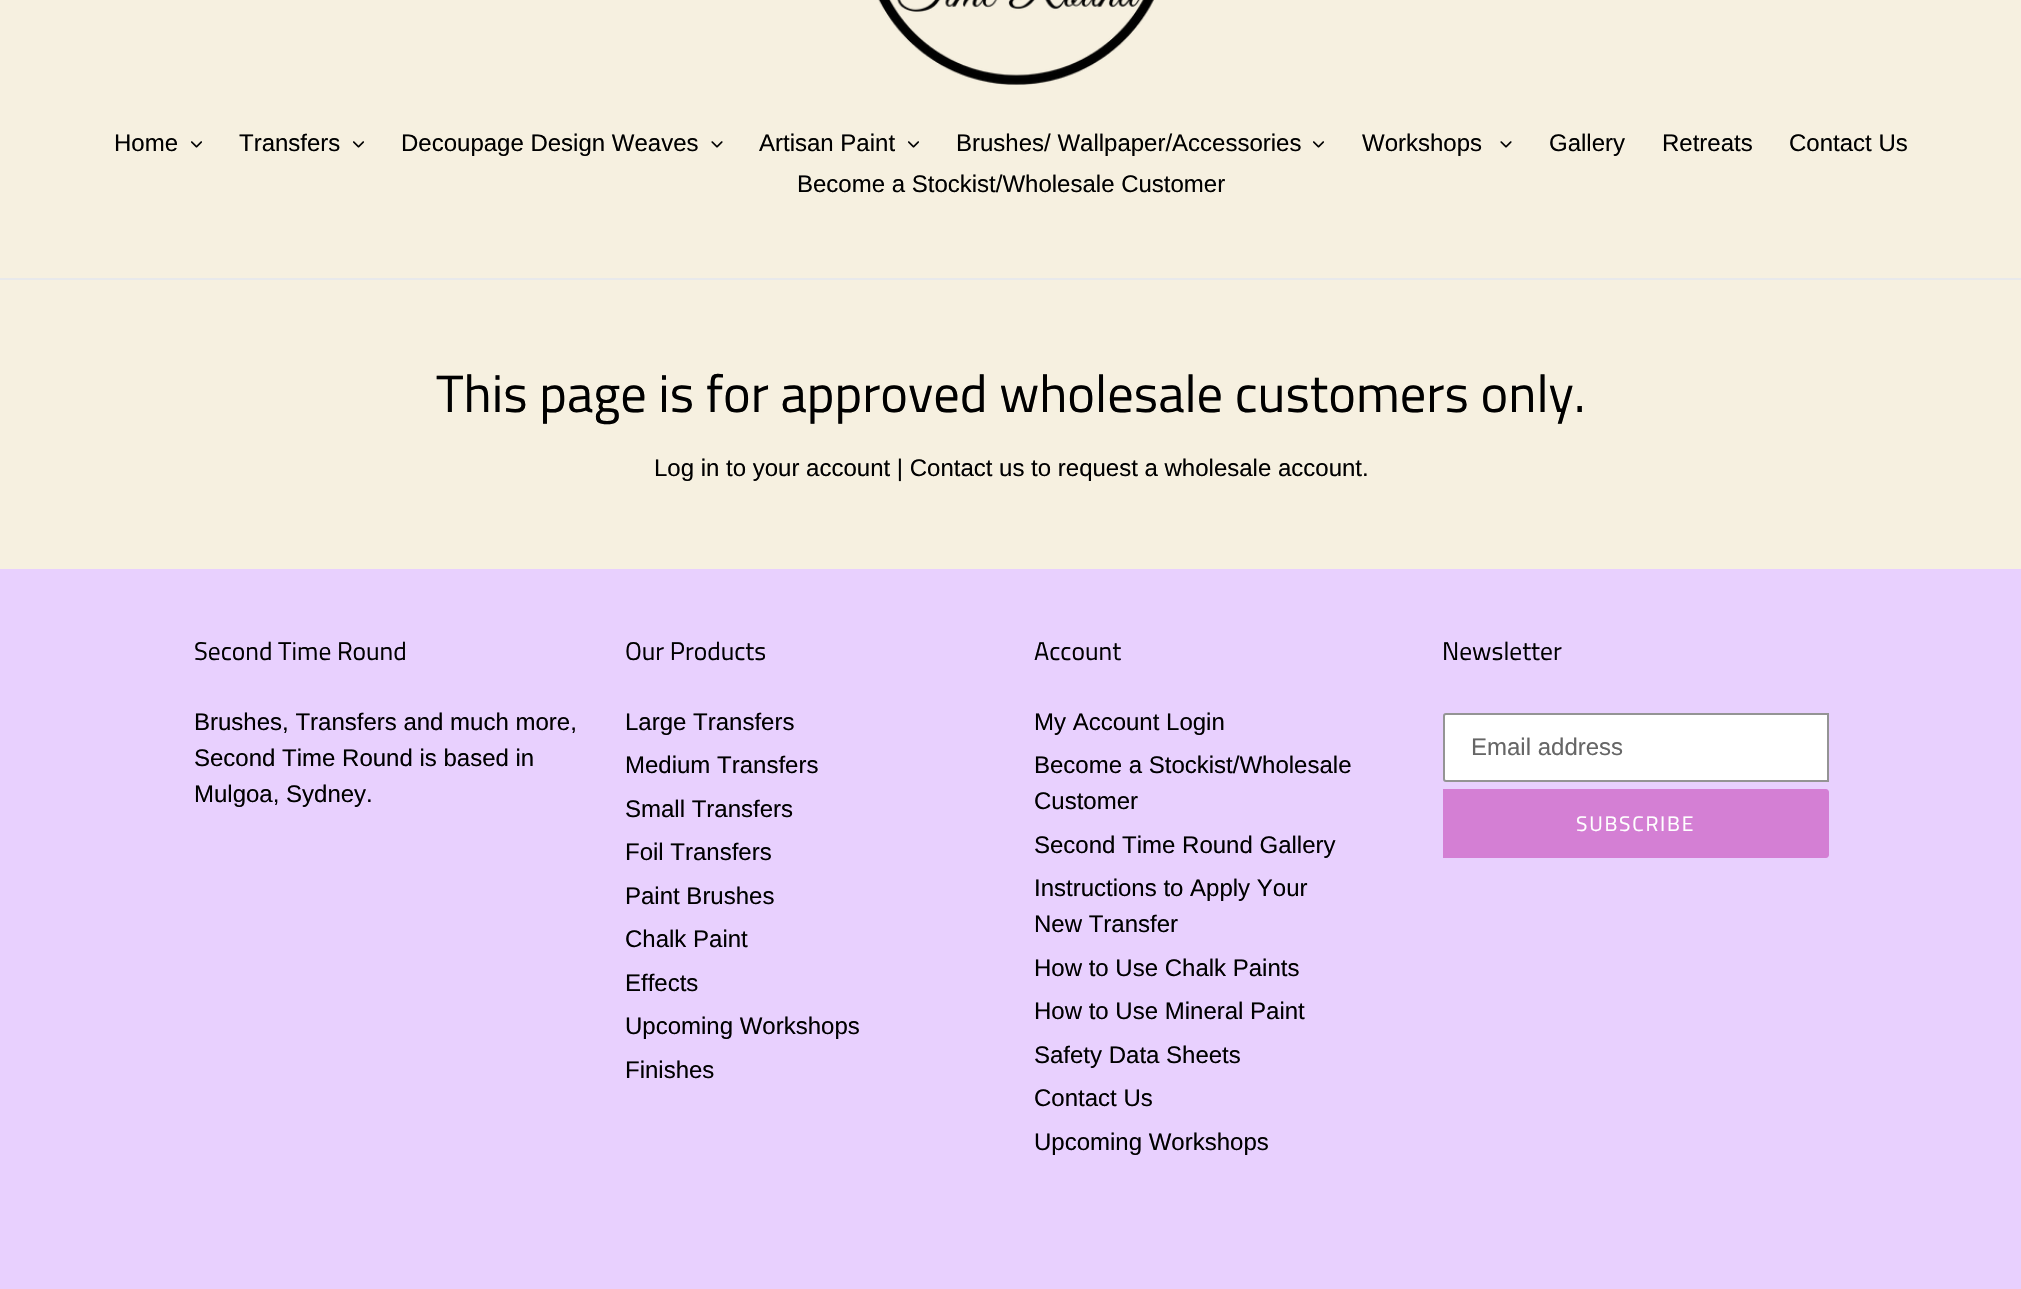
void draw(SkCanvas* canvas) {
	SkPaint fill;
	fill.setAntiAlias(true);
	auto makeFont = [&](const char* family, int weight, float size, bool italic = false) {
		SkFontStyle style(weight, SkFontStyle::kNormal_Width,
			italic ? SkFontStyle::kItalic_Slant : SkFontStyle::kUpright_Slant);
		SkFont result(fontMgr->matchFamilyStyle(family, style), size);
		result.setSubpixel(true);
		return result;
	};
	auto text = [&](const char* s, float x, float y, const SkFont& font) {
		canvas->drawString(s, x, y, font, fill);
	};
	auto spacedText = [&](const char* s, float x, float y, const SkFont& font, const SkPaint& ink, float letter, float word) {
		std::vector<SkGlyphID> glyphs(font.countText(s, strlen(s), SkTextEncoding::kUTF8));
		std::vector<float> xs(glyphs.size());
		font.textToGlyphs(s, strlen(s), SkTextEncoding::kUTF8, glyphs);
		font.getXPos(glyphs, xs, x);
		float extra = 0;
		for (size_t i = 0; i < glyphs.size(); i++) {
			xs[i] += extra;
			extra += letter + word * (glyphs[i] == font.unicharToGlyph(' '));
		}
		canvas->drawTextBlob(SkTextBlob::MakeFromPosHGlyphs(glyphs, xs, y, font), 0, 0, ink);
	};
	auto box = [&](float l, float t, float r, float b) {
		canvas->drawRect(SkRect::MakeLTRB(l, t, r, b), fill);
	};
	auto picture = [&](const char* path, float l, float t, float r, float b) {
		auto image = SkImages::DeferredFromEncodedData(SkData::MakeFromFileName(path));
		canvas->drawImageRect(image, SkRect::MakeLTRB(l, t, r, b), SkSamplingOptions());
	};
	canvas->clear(0xFFF6F0E0);
	picture("image0.png", 878, 0, 1154, 85);
	fill.setColor(0xFFE8E9EB);
	box(0, 278, 2021, 280);
	picture("image1.png", 191, 141, 202, 148);
	picture("image1.png", 353, 141, 364, 148);
	picture("image2.png", 711, 141, 723, 148);
	picture("image1.png", 908, 141, 919, 148);
	picture("image1.png", 1313, 141, 1324, 148);
	picture("image2.png", 1500, 141, 1512, 148);
	fill.setColor(0xFFE8D0FE);
	box(0, 569, 2021, 1289);
	fill.setColor(0xFFFFFFFF);
	canvas->drawPath(SkPathBuilder().moveTo(1446, 714).lineTo(1828, 714).lineTo(1828, 781).lineTo(1446, 781).cubicTo(1445, 781, 1444, 780, 1444, 779).lineTo(1444, 716).cubicTo(1444, 715, 1445, 714, 1446, 714).close().detach(), fill);
	fill.setStyle(SkPaint::kStroke_Style);
	fill.setStrokeWidth(2);
	fill.setColor(0xFF949494);
	canvas->drawPath(SkPathBuilder().moveTo(1446, 714).lineTo(1828, 714).lineTo(1828, 781).lineTo(1446, 781).cubicTo(1445, 781, 1444, 780, 1444, 779).lineTo(1444, 716).cubicTo(1444, 715, 1445, 714, 1446, 714).close().detach(), fill);
	fill.setStyle(SkPaint::kFill_Style);
	fill.setColor(0xFFD47FD4);
	canvas->drawPath(SkPathBuilder().moveTo(1443, 789).lineTo(1826, 789).cubicTo(1827.5f, 789, 1829, 790.5f, 1829, 792).lineTo(1829, 855).cubicTo(1829, 856.5f, 1827.5f, 858, 1826, 858).lineTo(1443, 858).close().detach(), fill);
	auto font1 = makeFont("Arimo", 400, 24);
	fill.setColor(0xFF000000);
	text("Home", 114, 151, font1);
	text("Transfers", 239, 151, font1);
	text("Decoupage Design Weaves", 401, 151, font1);
	text("Artisan Paint", 759, 151, font1);
	text("Brushes/ Wallpaper/Accessories", 956, 151, font1);
	text("Workshops", 1362, 151, font1);
	text("Gallery", 1549, 151, font1);
	text("Retreats", 1662, 151, font1);
	text("Contact Us", 1789, 151, font1);
	text("Become a Stockist/Wholesale Customer", 797, 192, font1);
	auto font2 = makeFont("Titillium Web", 400, 52.5f);
	text("This page is for approved wholesale customers only.", 436, 412, font2);
	text("Log in to your account | Contact us to request a wholesale account.", 654, 476, font1);
	auto font3 = makeFont("Titillium Web", 400, 25.5f);
	text("Second Time Round", 194, 660, font3);
	text("Brushes, Transfers and much more,", 194, 730, font1);
	text("Second Time Round is based in", 194, 766, font1);
	text("Mulgoa, Sydney.", 194, 802, font1);
	text("Our Products", 625, 660, font3);
	text("Large Transfers", 625, 730, font1);
	text("Medium Transfers", 625, 773, font1);
	text("Small Transfers", 625, 817, font1);
	text("Foil Transfers", 625, 860, font1);
	text("Paint Brushes", 625, 904, font1);
	text("Chalk Paint", 625, 947, font1);
	text("Effects", 625, 991, font1);
	text("Upcoming Workshops", 625, 1034, font1);
	text("Finishes", 625, 1078, font1);
	text("Account", 1034, 660, font3);
	text("My Account Login", 1034, 730, font1);
	text("Become a Stockist/Wholesale", 1034, 773, font1);
	text("Customer", 1034, 809, font1);
	text("Second Time Round Gallery", 1034, 853, font1);
	text("Instructions to Apply Your", 1034, 896, font1);
	text("New Transfer", 1034, 932, font1);
	text("How to Use Chalk Paints", 1034, 976, font1);
	text("How to Use Mineral Paint", 1034, 1019, font1);
	text("Safety Data Sheets", 1034, 1063, font1);
	text("Contact Us", 1034, 1106, font1);
	text("Upcoming Workshops", 1034, 1150, font1);
	text("Newsletter", 1442, 660, font3);
	fill.setColor(0xFF666666);
	text("Email address", 1471, 755, font1);
	auto font4 = makeFont("Titillium Web", 400, 21);
	fill.setColor(0xFFFFFFFF);
	spacedText("SUBSCRIBE", 1576, 831, font4, fill, 1.75f, 0);
}
